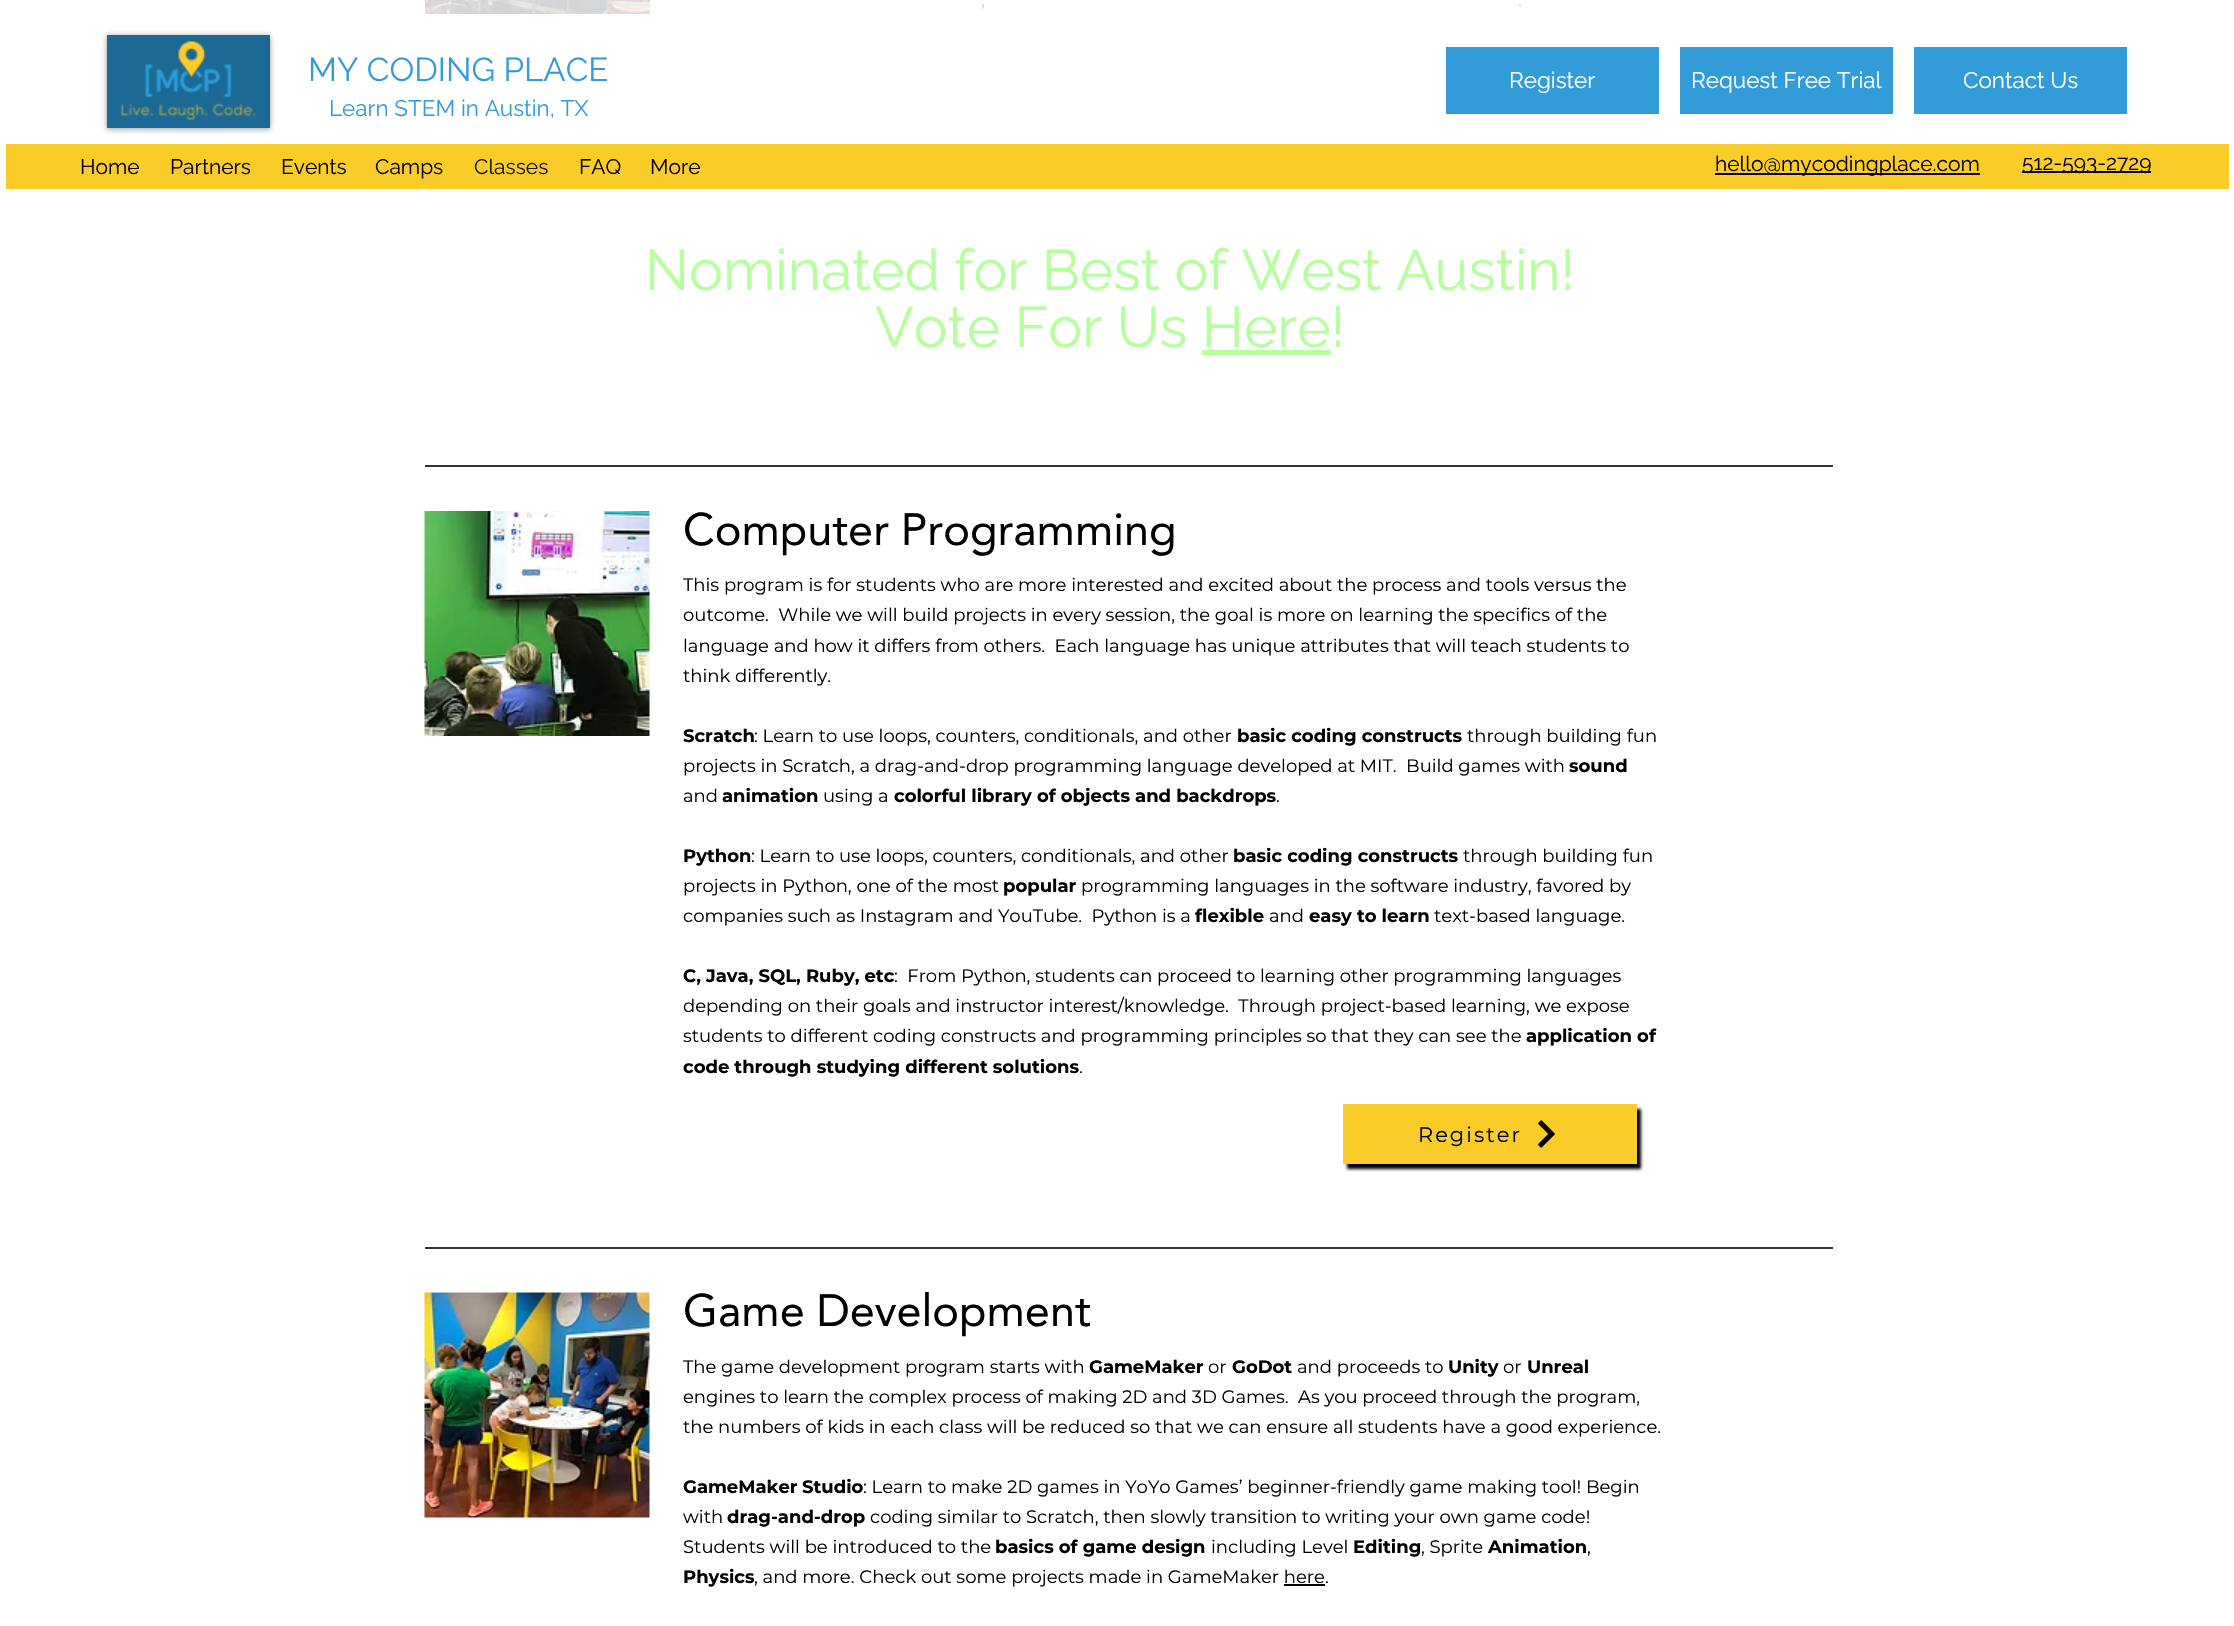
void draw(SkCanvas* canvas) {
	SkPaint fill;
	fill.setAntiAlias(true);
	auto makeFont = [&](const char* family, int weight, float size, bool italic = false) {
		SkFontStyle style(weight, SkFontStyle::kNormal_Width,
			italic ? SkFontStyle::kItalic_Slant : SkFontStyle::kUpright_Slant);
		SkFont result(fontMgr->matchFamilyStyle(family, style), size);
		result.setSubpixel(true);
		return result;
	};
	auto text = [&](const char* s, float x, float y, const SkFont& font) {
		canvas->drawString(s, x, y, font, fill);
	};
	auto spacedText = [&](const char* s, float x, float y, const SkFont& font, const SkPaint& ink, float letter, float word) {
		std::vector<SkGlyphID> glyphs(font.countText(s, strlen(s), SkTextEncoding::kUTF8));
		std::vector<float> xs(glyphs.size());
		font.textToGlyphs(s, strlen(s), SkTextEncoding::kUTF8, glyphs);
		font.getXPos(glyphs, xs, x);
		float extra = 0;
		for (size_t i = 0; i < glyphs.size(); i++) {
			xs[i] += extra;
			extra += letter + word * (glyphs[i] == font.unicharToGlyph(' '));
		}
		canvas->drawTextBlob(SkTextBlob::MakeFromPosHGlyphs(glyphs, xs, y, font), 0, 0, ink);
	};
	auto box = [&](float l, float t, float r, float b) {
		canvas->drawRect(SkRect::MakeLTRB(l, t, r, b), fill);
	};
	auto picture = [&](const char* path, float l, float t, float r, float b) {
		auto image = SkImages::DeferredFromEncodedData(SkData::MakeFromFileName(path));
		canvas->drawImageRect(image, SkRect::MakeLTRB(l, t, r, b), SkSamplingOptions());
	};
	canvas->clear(0xFFFFFFFF);
	picture("image0.png", 425, 0, 650, 14);
	fill.setColor(0xFF333333);
	box(425, 465, 1833, 467);
	picture("image1.png", 424, 511, 650, 736);
	fill.setColor(0xFF000000);
	fill.setMaskFilter(SkMaskFilter::MakeBlur(kNormal_SkBlurStyle, 1.5f));
	canvas->drawRect(SkRect::MakeLTRB(1347, 1109, 1641, 1169), fill);
	fill.setMaskFilter(nullptr);
	fill.setColor(0xFFFACC2A);
	box(1343, 1104, 1637, 1164);
	picture("image2.png", 1538, 1120, 1555, 1148);
	fill.setColor(0xFF333333);
	box(425, 1247, 1833, 1249);
	picture("image3.png", 424, 1292, 650, 1518);
	fill.setColor(0xFF000000);
	box(1284, 1584, 1325, 1586);
	fill.setColor(0x66000000);
	fill.setMaskFilter(SkMaskFilter::MakeBlur(kNormal_SkBlurStyle, 3));
	canvas->drawRect(SkRect::MakeLTRB(107, 36, 270, 129), fill);
	fill.setMaskFilter(nullptr);
	fill.setColor(0xFF1C6995);
	box(107, 35, 270, 128);
	picture("image4.png", 121, 41, 256, 120);
	fill.setColor(0xFF319CD8);
	box(1446, 47, 1659, 114);
	box(1680, 47, 1893, 114);
	box(1914, 47, 2127, 114);
	fill.setColor(0xFFFACC2A);
	box(6, 144, 2229, 189);
	fill.setColor(0xFF000000);
	box(1715, 173, 1980, 175);
	box(2022, 171, 2151, 173);
	fill.setColor(0xFFB5FF9D);
	box(1202, 350, 1331, 355);
	auto font1 = makeFont("Montserrat", 400, 18);
	fill.setColor(0xFFD1D1D1);
	text(",", 981, 6, font1);
	text(".", 1518, 6, font1);
	auto font2 = makeFont("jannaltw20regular", 400, 45);
	fill.setColor(0xFF000000);
	text("Computer Programming", 683, 545, font2);
	text("This program is for students who are more interested and excited about the process and tools versus the", 683, 591, font1);
	text("outcome.  While we will build projects in every session, the goal is more on learning the specifics of the", 683, 621, font1);
	text("language and how it differs from others.  Each language has unique attributes that will teach students to", 683, 652, font1);
	text("think differently.", 683, 682, font1);
	auto font3 = makeFont("Montserrat", 700, 18);
	text("Scratch", 683, 742, font3);
	text(": Learn to use loops, counters, conditionals, and other", 754, 742, font1);
	text("basic coding constructs", 1237, 742, font3);
	text("through building fun", 1467, 742, font1);
	text("projects in Scratch, a drag-and-drop programming language developed at MIT.  Build games with", 683, 772, font1);
	text("sound", 1569, 772, font3);
	text("and", 683, 802, font1);
	text("animation", 722, 802, font3);
	text("using a", 823, 802, font1);
	text("colorful library of objects and backdrops", 894, 802, font3);
	text(".", 1276, 802, font1);
	text("Python", 683, 862, font3);
	text(": Learn to use loops, counters, conditionals, and other", 751, 862, font1);
	text("basic coding constructs", 1233, 862, font3);
	text("through building fun", 1463, 862, font1);
	text("projects in Python, one of the most", 683, 892, font1);
	text("popular", 1003, 892, font3);
	text("programming languages in the software industry, favored by", 1081, 892, font1);
	text("companies such as Instagram and YouTube.  Python is a", 683, 922, font1);
	text("flexible", 1195, 922, font3);
	text("and", 1269, 922, font1);
	text("easy to learn", 1309, 922, font3);
	text("text-based language.", 1434, 922, font1);
	text("C, Java, SQL, Ruby, etc", 683, 982, font3);
	text(":  From Python, students can proceed to learning other programming languages", 894, 982, font1);
	text("depending on their goals and instructor interest/knowledge.  Through project-based learning, we expose", 683, 1012, font1);
	text("students to different coding constructs and programming principles so that they can see the", 683, 1042, font1);
	text("application of", 1526, 1042, font3);
	text("code through studying different solutions", 683, 1073, font3);
	text(".", 1079, 1073, font1);
	auto font4 = makeFont("Montserrat", 400, 21);
	spacedText("Register", 1418, 1142, font4, fill, 2, 0);
	text("Game Development", 683, 1326, font2);
	text("The game development program starts with", 683, 1373, font1);
	text("GameMaker", 1089, 1373, font3);
	text("or", 1208, 1373, font1);
	text("GoDot", 1232, 1373, font3);
	text("and proceeds to", 1297, 1373, font1);
	text("Unity", 1448, 1373, font3);
	text("or", 1503, 1373, font1);
	text("Unreal", 1527, 1373, font3);
	text("engines to learn the complex process of making 2D and 3D Games.  As you proceed through the program,", 683, 1403, font1);
	text("the numbers of kids in each class will be reduced so that we can ensure all students have a good experience.", 683, 1433, font1);
	text("GameMaker", 683, 1493, font3);
	text("Studio", 802, 1493, font3);
	text(": Learn to make 2D games in YoYo Games’ beginner-friendly game making tool! Begin", 863, 1493, font1);
	text("with", 683, 1523, font1);
	text("drag-and-drop", 727, 1523, font3);
	text("coding similar to Scratch, then slowly transition to writing your own game code!", 870, 1523, font1);
	text("Students will be introduced to the", 683, 1553, font1);
	text("basics of game design", 995, 1553, font3);
	text("including Level", 1211, 1553, font1);
	text("Editing", 1353, 1553, font3);
	text(", Sprite", 1421, 1553, font1);
	text("Animation", 1488, 1553, font3);
	text(",", 1587, 1553, font1);
	text("Physics", 683, 1583, font3);
	text(", and more. Check out some projects made in GameMaker here.", 754, 1583, font1);
	auto font5 = makeFont("Raleway", 400, 33);
	fill.setColor(0xFF319CD8);
	text("MY CODING PLACE", 308, 81, font5);
	auto font6 = makeFont("Raleway", 400, 22.5f);
	text("Learn STEM in Austin, TX", 329, 116, font6);
	fill.setColor(0xFFFFFFFF);
	text("Register", 1509, 88, font6);
	text("Request Free Trial", 1691, 88, font6);
	text("Contact Us", 1963, 88, font6);
	auto font7 = makeFont("Raleway", 400, 21);
	fill.setColor(0xFF000000);
	text("Home", 80, 174, font7);
	text("Partners", 170, 174, font7);
	text("Events", 281, 174, font7);
	text("Camps", 375, 174, font7);
	fill.setColor(0xFF161616);
	text("Classes", 474, 174, font7);
	fill.setColor(0xFF000000);
	text("FAQ", 579, 174, font7);
	text("More", 650, 174, font7);
	text("hello@mycodingplace.com", 1715, 171, font7);
	text("512-593-2729", 2022, 170, font7);
	auto font8 = makeFont("Raleway", 400, 57);
	fill.setColor(0xFFB5FF9D);
	text("Nominated for Best of West Austin!", 645, 290, font8);
	text("Vote For Us Here!", 875, 347, font8);
}
